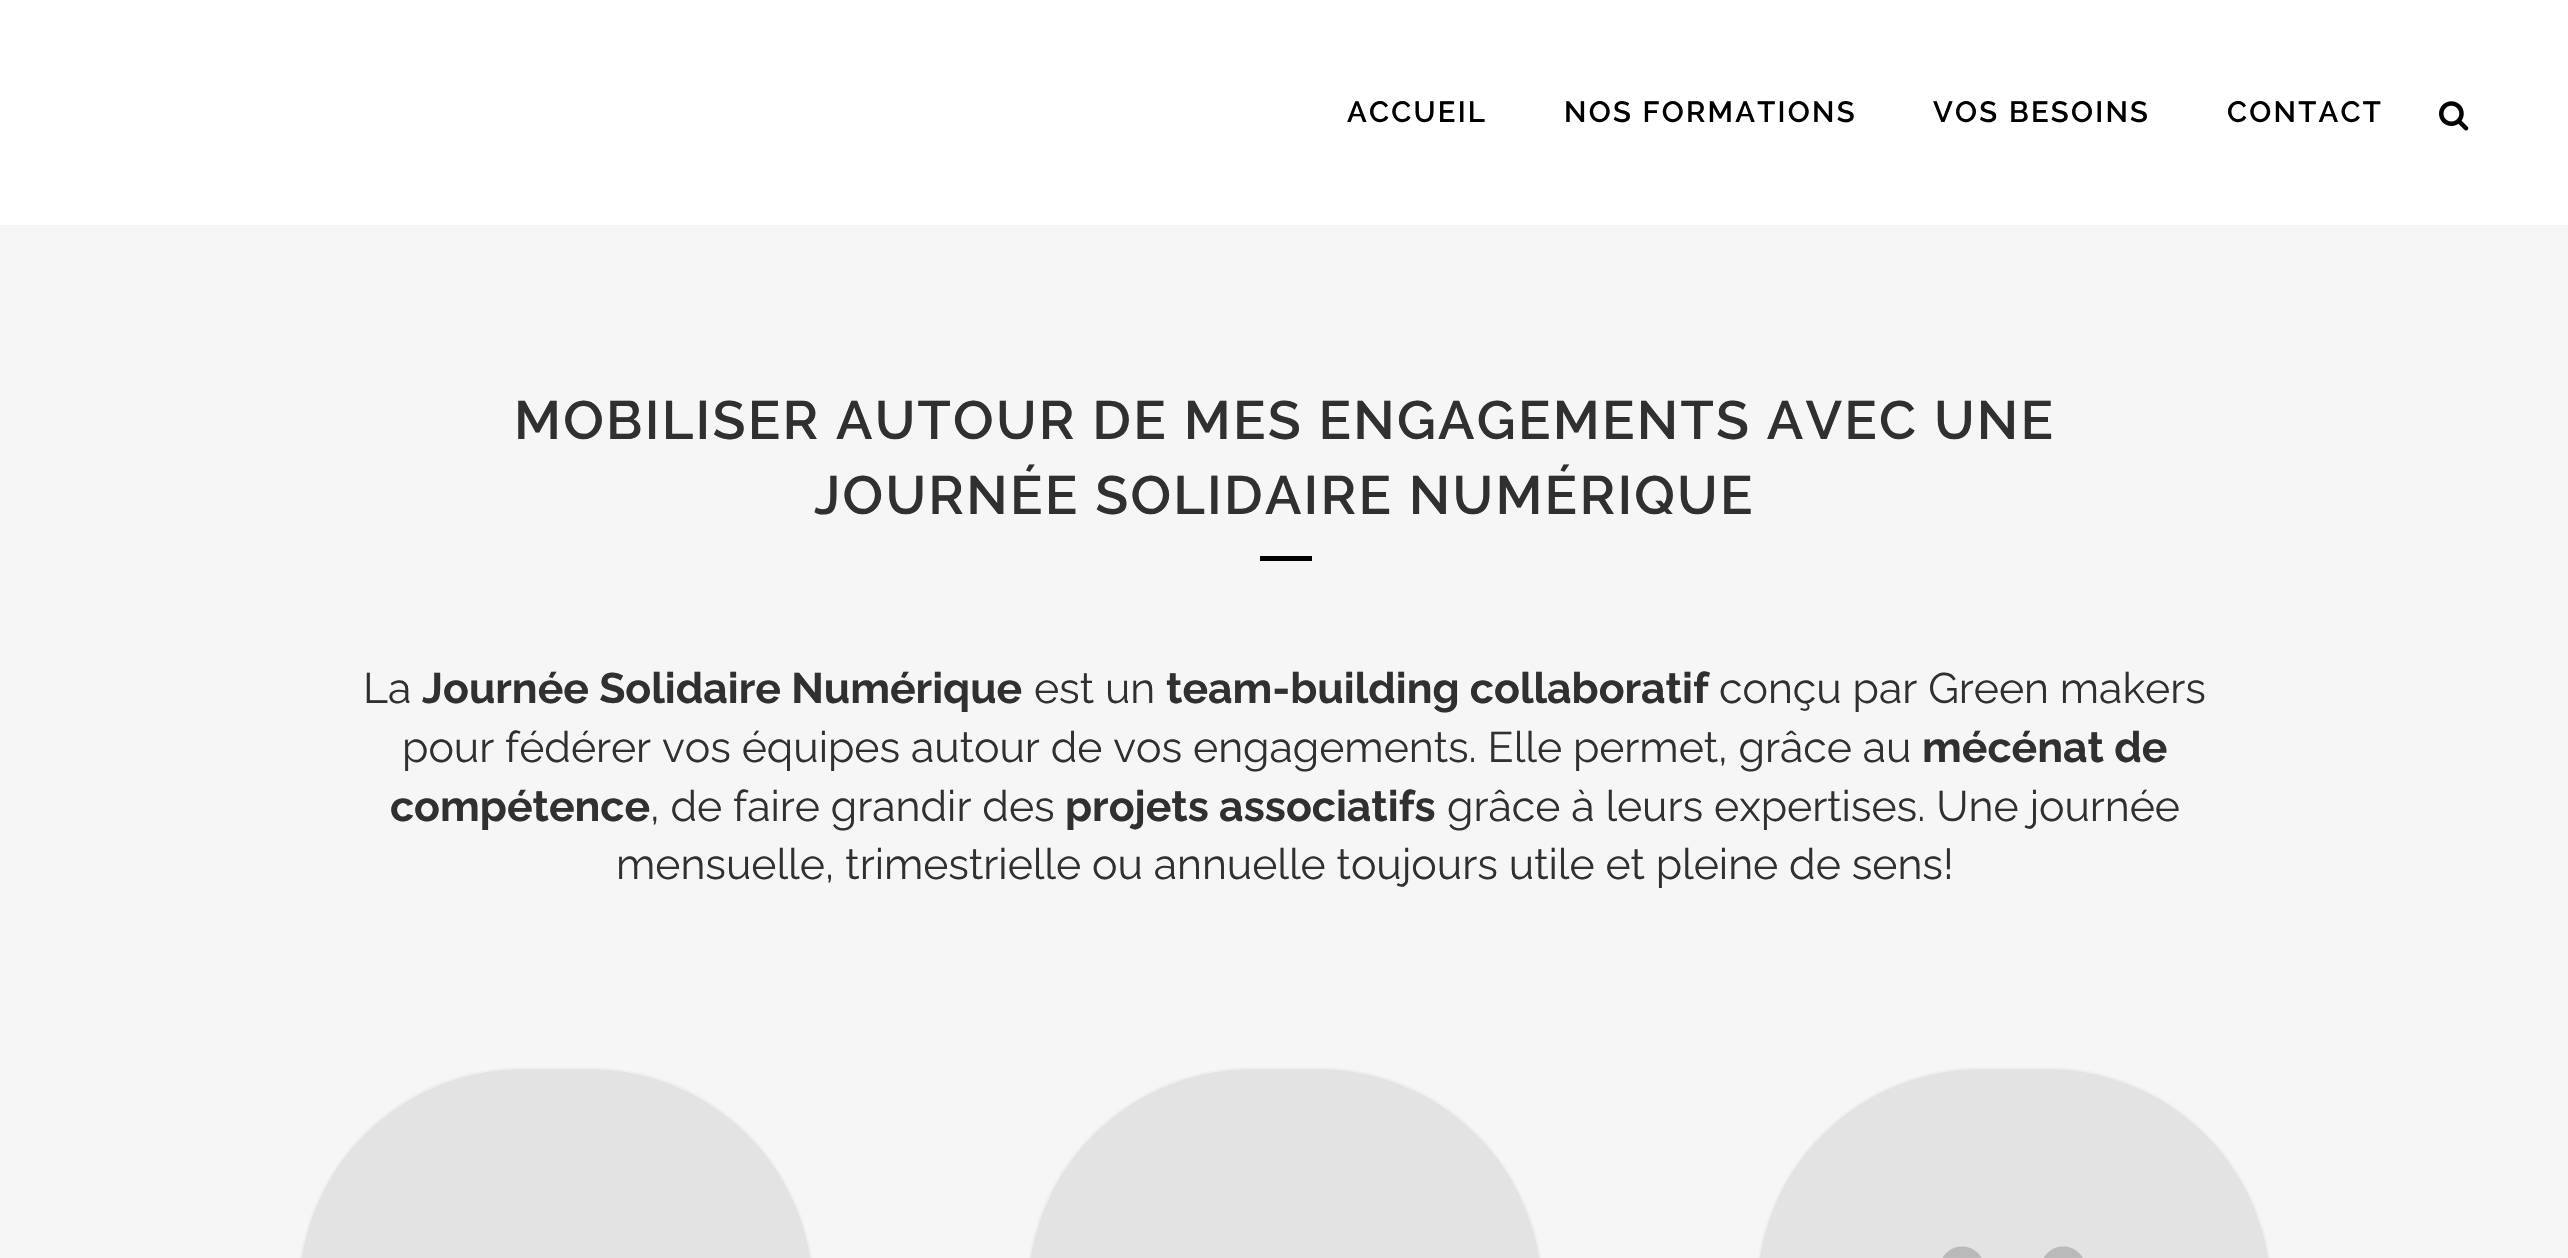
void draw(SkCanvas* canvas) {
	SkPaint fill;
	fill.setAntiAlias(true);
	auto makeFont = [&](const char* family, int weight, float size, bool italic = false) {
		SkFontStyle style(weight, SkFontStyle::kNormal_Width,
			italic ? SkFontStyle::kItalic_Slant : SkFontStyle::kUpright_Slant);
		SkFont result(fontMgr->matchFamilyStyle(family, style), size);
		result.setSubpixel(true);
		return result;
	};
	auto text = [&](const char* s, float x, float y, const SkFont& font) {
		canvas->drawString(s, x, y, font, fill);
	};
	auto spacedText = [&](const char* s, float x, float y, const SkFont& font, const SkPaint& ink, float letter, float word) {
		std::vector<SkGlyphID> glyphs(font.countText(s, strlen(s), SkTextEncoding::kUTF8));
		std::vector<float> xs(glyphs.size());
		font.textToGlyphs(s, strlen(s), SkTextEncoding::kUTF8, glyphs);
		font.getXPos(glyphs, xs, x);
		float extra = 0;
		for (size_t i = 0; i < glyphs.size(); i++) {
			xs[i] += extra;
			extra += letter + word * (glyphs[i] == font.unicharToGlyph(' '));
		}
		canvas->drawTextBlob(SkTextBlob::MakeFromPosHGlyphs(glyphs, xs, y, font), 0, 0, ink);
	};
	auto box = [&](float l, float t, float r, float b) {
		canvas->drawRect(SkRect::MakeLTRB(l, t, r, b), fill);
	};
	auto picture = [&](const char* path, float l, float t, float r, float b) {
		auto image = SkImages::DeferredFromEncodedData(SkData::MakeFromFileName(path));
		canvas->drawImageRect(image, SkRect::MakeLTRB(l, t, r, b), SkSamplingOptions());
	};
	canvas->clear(0xFFF6F6F6);
	fill.setColor(0xFFFFFFFF);
	box(0, 0, 2568, 225);
	picture("image0.png", 2439, 101, 2469, 131);
	fill.setColor(0xFF000000);
	box(1260, 556, 1312, 561);
	fill.setColor(0xFFE3E3E3);
	canvas->drawRoundRect(SkRect::MakeLTRB(298, 1068, 814, 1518), 257.5f, 257.5f, fill);
	fill.setStyle(SkPaint::kStroke_Style);
	fill.setStrokeWidth(2);
	fill.setColor(0xFFF0F0F0);
	canvas->drawRoundRect(SkRect::MakeLTRB(298, 1068, 814, 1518), 257.5f, 257.5f, fill);
	fill.setStyle(SkPaint::kFill_Style);
	fill.setColor(0xFFE3E3E3);
	canvas->drawRoundRect(SkRect::MakeLTRB(1027, 1068, 1543, 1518), 257.5f, 257.5f, fill);
	fill.setStyle(SkPaint::kStroke_Style);
	fill.setColor(0xFFF0F0F0);
	canvas->drawRoundRect(SkRect::MakeLTRB(1027, 1068, 1543, 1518), 257.5f, 257.5f, fill);
	fill.setStyle(SkPaint::kFill_Style);
	fill.setColor(0xFFE3E3E3);
	canvas->drawRoundRect(SkRect::MakeLTRB(1756, 1068, 2272, 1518), 257.5f, 257.5f, fill);
	fill.setStyle(SkPaint::kStroke_Style);
	fill.setColor(0xFFF0F0F0);
	canvas->drawRoundRect(SkRect::MakeLTRB(1756, 1068, 2272, 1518), 257.5f, 257.5f, fill);
	picture("image1.png", 1942, 1246, 2083, 1258);
	auto font1 = makeFont("Raleway", 600, 29.25f);
	fill.setStyle(SkPaint::kFill_Style);
	fill.setColor(0xFF000000);
	spacedText("ACCUEIL", 1347, 122, font1, fill, 2.25f, 0);
	spacedText("NOS FORMATIONS", 1564, 122, font1, fill, 2.25f, 0);
	spacedText("VOS BESOINS", 1933, 122, font1, fill, 2.25f, 0);
	spacedText("CONTACT", 2227, 122, font1, fill, 2.25f, 0);
	auto font2 = makeFont("Raleway", 600, 54);
	fill.setColor(0xFF303030);
	spacedText("MOBILISER AUTOUR DE MES ENGAGEMENTS AVEC UNE", 514, 439, font2, fill, 2.25f, 0);
	spacedText("JOURNÉE SOLIDAIRE NUMÉRIQUE", 814, 514, font2, fill, 2.25f, 0);
	auto font3 = makeFont("Raleway", 400, 42.75f);
	text("La", 363, 703, font3);
	auto font4 = makeFont("Raleway", 700, 42.75f);
	text("Journée Solidaire Numérique", 422, 703, font4);
	text("est un", 1034, 703, font3);
	text("team-building collaboratif", 1166, 703, font4);
	text("conçu par Green makers", 1719, 703, font3);
	text("pour fédérer vos équipes autour de vos engagements. Elle permet, grâce au", 402, 762, font3);
	text("mécénat de", 1922, 762, font4);
	text("compétence", 390, 821, font4);
	text(", de faire grandir des", 650, 821, font3);
	text("projets associatifs", 1065, 821, font4);
	text("grâce à leurs expertises. Une journée", 1447, 821, font3);
	text("mensuelle, trimestrielle ou annuelle toujours utile et pleine de sens!", 616, 879, font3);
}
